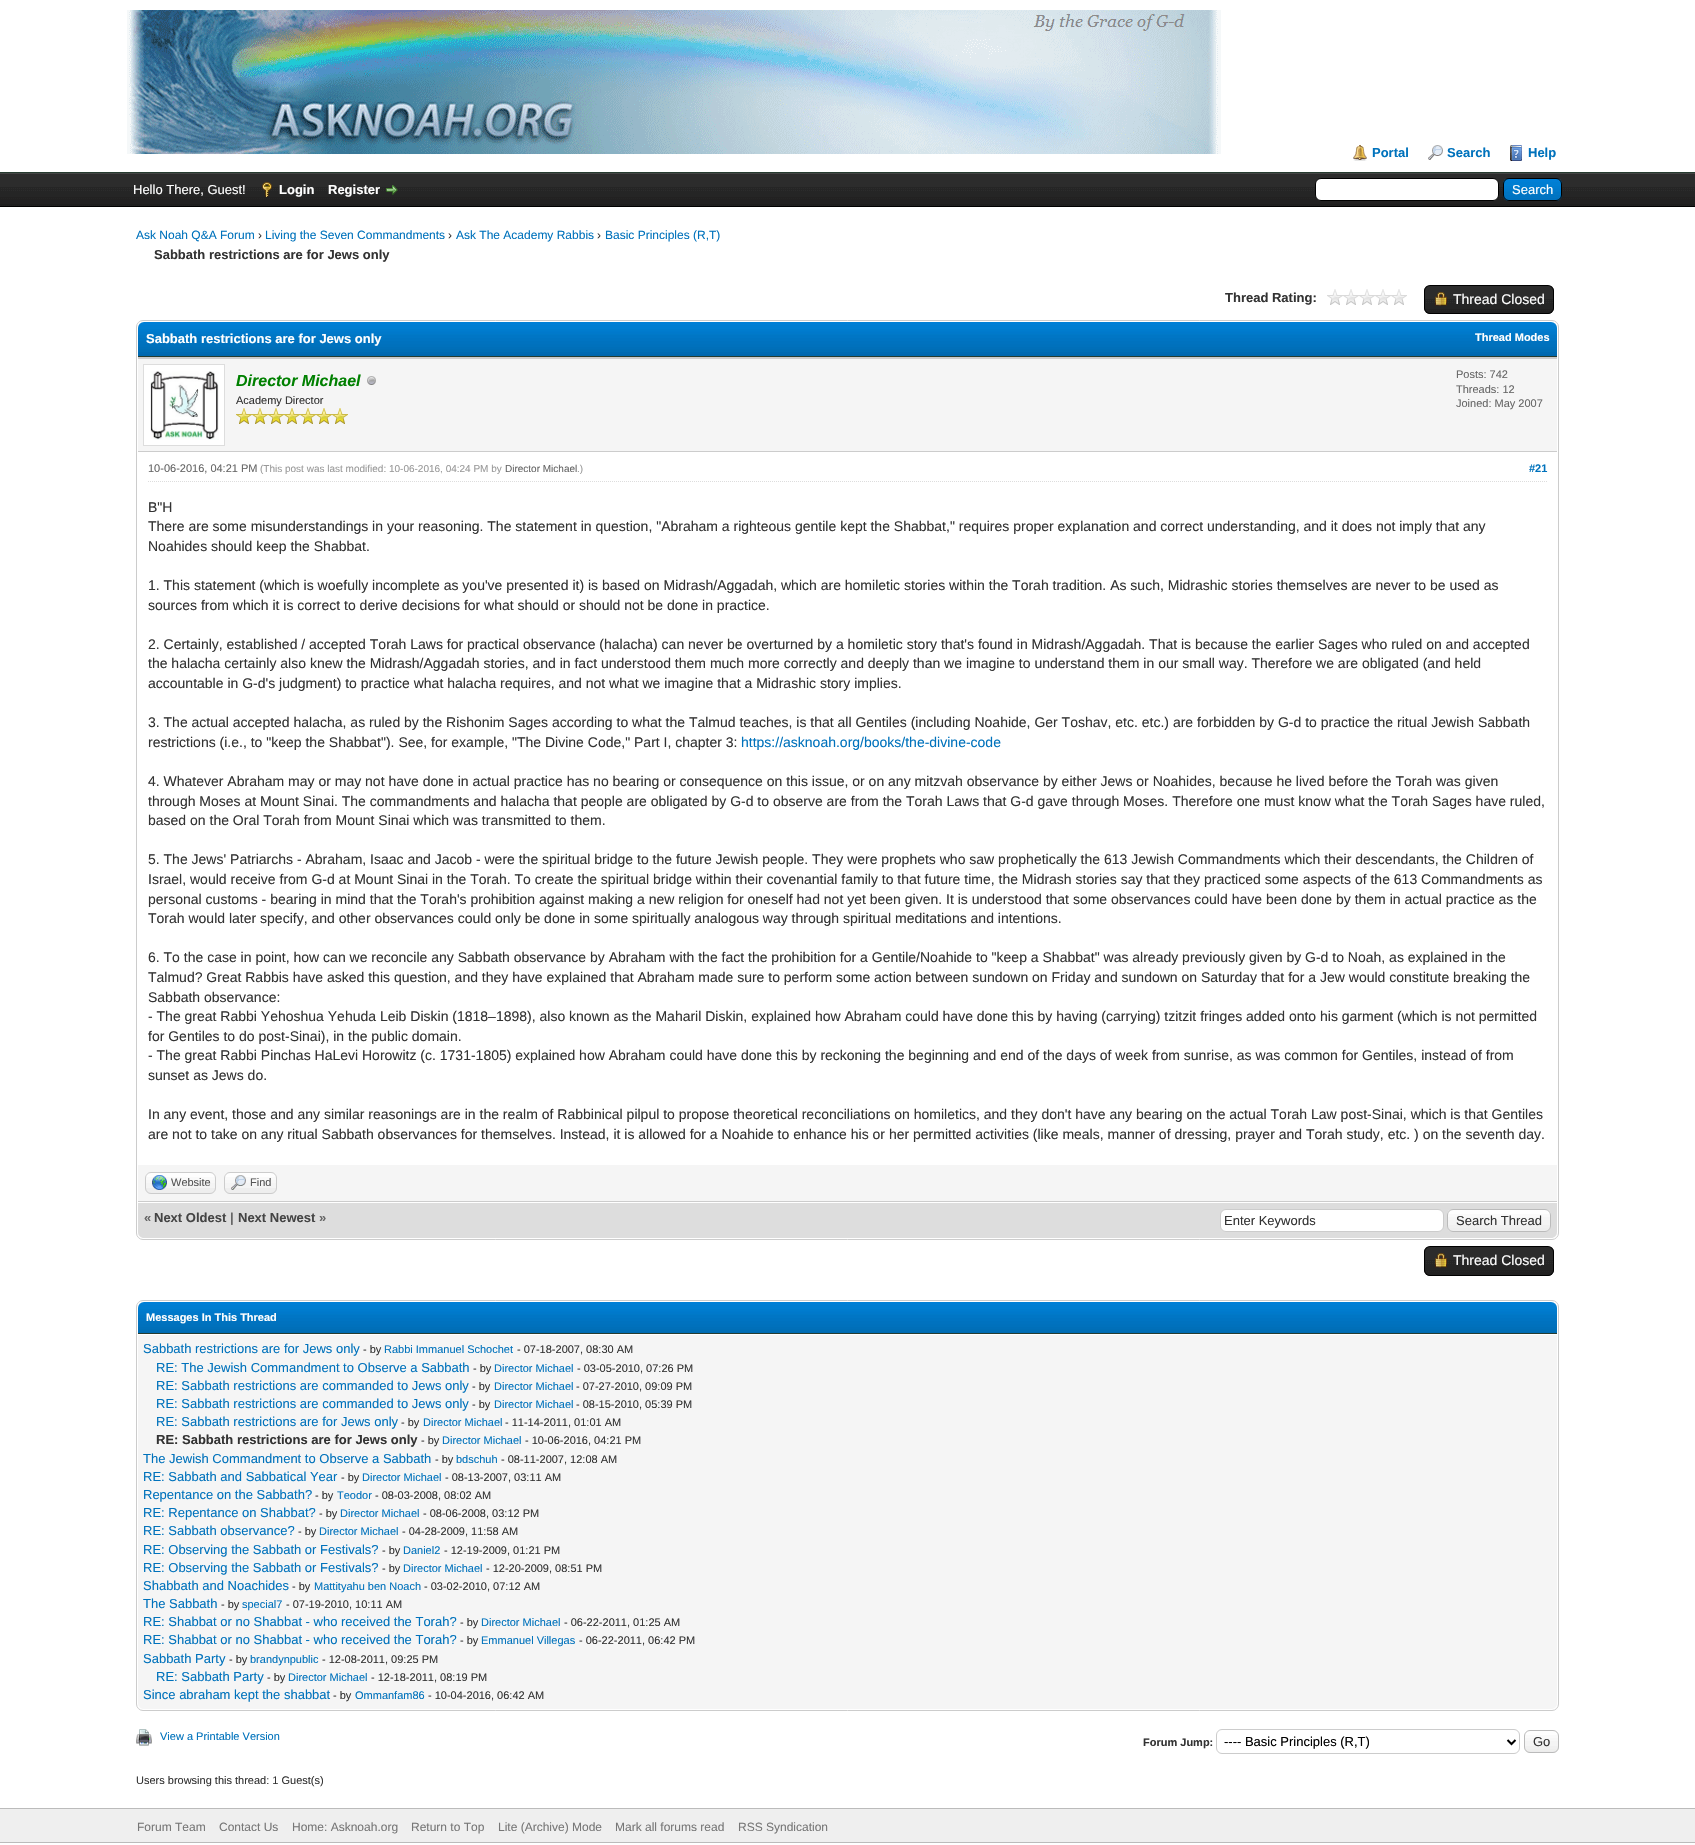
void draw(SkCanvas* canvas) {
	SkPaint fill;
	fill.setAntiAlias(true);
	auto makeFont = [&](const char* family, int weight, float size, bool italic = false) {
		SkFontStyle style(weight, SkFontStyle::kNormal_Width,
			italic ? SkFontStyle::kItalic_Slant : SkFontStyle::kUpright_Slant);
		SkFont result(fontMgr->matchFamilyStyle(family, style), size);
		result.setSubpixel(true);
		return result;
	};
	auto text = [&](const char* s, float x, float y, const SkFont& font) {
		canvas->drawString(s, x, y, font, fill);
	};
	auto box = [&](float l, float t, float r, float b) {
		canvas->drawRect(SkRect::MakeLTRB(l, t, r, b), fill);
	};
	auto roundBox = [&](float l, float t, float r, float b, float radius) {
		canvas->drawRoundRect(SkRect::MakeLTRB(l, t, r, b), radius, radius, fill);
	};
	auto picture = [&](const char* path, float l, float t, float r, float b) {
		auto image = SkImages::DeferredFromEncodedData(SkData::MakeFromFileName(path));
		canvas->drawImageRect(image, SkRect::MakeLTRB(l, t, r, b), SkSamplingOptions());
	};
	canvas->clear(0xFFFFFFFF);
	fill.setColor(0xFF263C30);
	box(0, 172, 1695, 173);
	picture("image0.png", 127, 10, 1221, 154);
	picture("image1.png", 1353, 145, 1367, 161);
	picture("image2.png", 1428, 145, 1443, 160);
	picture("image3.png", 1510, 145, 1522, 161);
	picture("image4.png", 0, 174, 1695, 206);
	fill.setColor(0xFF444444);
	box(0, 173, 1695, 174);
	fill.setColor(0xFF000000);
	box(0, 206, 1695, 207);
	picture("image5.png", 262, 182, 272, 197);
	picture("image6.png", 386, 185, 398, 195);
	fill.setColor(0xFFFFFFFF);
	canvas->drawRoundRect(SkRect::MakeLTRB(1315.5f, 178.5f, 1498.5f, 200.5f), 5.5f, 5.5f, fill);
	fill.setStyle(SkPaint::kStroke_Style);
	fill.setStrokeWidth(1);
	fill.setColor(0xFF000000);
	canvas->drawRoundRect(SkRect::MakeLTRB(1315.5f, 178.5f, 1498.5f, 200.5f), 5.5f, 5.5f, fill);
	picture("image7.png", 1503, 179, 1562, 201);
	canvas->drawRoundRect(SkRect::MakeLTRB(1503.5f, 178.5f, 1561.5f, 200.5f), 5.5f, 5.5f, fill);
	picture("image8.png", 1327, 289, 1407, 305);
	picture("image9.png", 1424, 286, 1554, 314);
	canvas->drawRoundRect(SkRect::MakeLTRB(1424.5f, 285.5f, 1553.5f, 313.5f), 5.5f, 5.5f, fill);
	picture("image10.png", 1435, 292, 1447, 306);
	fill.setColor(0xFFCCCCCC);
	canvas->drawRoundRect(SkRect::MakeLTRB(136.5f, 320.5f, 1558.5f, 1239.5f), 6.5f, 6.5f, fill);
	picture("image11.png", 138, 322, 1557, 356);
	fill.setStyle(SkPaint::kFill_Style);
	fill.setColor(0xFF263C30);
	box(138, 356, 1557, 357);
	fill.setColor(0xFFF5F5F5);
	box(138, 359, 1557, 451);
	fill.setColor(0xFFCCCCCC);
	box(138, 357, 1557, 359);
	box(138, 451, 1557, 452);
	fill.setColor(0xFFFFFFFF);
	canvas->drawRect(SkRect::MakeLTRB(143.5f, 364.5f, 224.5f, 445.5f), fill);
	fill.setStyle(SkPaint::kStroke_Style);
	fill.setColor(0xFFDDDDDD);
	canvas->drawRect(SkRect::MakeLTRB(143.5f, 364.5f, 224.5f, 445.5f), fill);
	picture("image12.png", 150, 371, 219, 440);
	picture("image13.png", 367, 376, 376, 385);
	picture("image14.png", 236, 408, 252, 424);
	picture("image14.png", 252, 408, 268, 424);
	picture("image14.png", 268, 408, 284, 424);
	picture("image14.png", 284, 408, 300, 424);
	picture("image14.png", 300, 408, 316, 424);
	picture("image14.png", 316, 408, 332, 424);
	picture("image14.png", 332, 408, 348, 424);
	fill.setPathEffect(SkDashPathEffect::Make({{1, 1}}, 0));
	canvas->drawPath(SkPathBuilder().moveTo(148, 481.5f).lineTo(1547, 481.5f).detach(), fill);
	fill.setPathEffect(nullptr);
	fill.setStyle(SkPaint::kFill_Style);
	fill.setColor(0xFFF5F5F5);
	box(138, 1165, 1557, 1201);
	fill.setColor(0xFFCCCCCC);
	box(138, 1201, 1557, 1202);
	fill.setColor(0xFFEEEEEE);
	roundBox(145, 1172, 216, 1194, 6);
	picture("image15.png", 145, 1173, 216, 1188);
	fill.setStyle(SkPaint::kStroke_Style);
	fill.setColor(0xFFCCCCCC);
	canvas->drawRoundRect(SkRect::MakeLTRB(145.5f, 1172.5f, 215.5f, 1193.5f), 5.5f, 5.5f, fill);
	picture("image16.png", 152, 1175, 167, 1190);
	fill.setStyle(SkPaint::kFill_Style);
	fill.setColor(0xFFEEEEEE);
	roundBox(224, 1172, 277, 1194, 6);
	picture("image17.png", 224, 1173, 277, 1188);
	fill.setStyle(SkPaint::kStroke_Style);
	fill.setColor(0xFFCCCCCC);
	canvas->drawRoundRect(SkRect::MakeLTRB(224.5f, 1172.5f, 276.5f, 1193.5f), 5.5f, 5.5f, fill);
	picture("image18.png", 231, 1175, 246, 1190);
	fill.setStyle(SkPaint::kFill_Style);
	fill.setColor(0xFFDDDDDD);
	canvas->drawPath(SkPathBuilder().moveTo(138, 1202).lineTo(1557, 1202).lineTo(1557, 1232).cubicTo(1557, 1235.5f, 1554.5f, 1238, 1551, 1238).lineTo(144, 1238).cubicTo(140.5f, 1238, 138, 1235.5f, 138, 1232).close().detach(), fill);
	fill.setColor(0xFFFFFFFF);
	box(138, 1202, 1557, 1203);
	canvas->drawRoundRect(SkRect::MakeLTRB(1220.5f, 1209.5f, 1443.5f, 1231.5f), 5.5f, 5.5f, fill);
	fill.setStyle(SkPaint::kStroke_Style);
	fill.setColor(0xFFCCCCCC);
	canvas->drawRoundRect(SkRect::MakeLTRB(1220.5f, 1209.5f, 1443.5f, 1231.5f), 5.5f, 5.5f, fill);
	fill.setStyle(SkPaint::kFill_Style);
	fill.setColor(0xFFEEEEEE);
	roundBox(1447, 1209, 1551, 1232, 6);
	picture("image19.png", 1447, 1210, 1551, 1228);
	fill.setStyle(SkPaint::kStroke_Style);
	fill.setColor(0xFFBBBBBB);
	canvas->drawRoundRect(SkRect::MakeLTRB(1447.5f, 1209.5f, 1550.5f, 1231.5f), 5.5f, 5.5f, fill);
	picture("image20.png", 1424, 1247, 1554, 1276);
	fill.setColor(0xFF000000);
	canvas->drawRoundRect(SkRect::MakeLTRB(1424.5f, 1246.5f, 1553.5f, 1275.5f), 5.5f, 5.5f, fill);
	picture("image21.png", 1435, 1253, 1447, 1268);
	fill.setColor(0xFFCCCCCC);
	canvas->drawRoundRect(SkRect::MakeLTRB(136.5f, 1300.5f, 1558.5f, 1710.5f), 6.5f, 6.5f, fill);
	picture("image22.png", 138, 1302, 1557, 1333);
	fill.setStyle(SkPaint::kFill_Style);
	fill.setColor(0xFF263C30);
	box(138, 1333, 1557, 1334);
	fill.setColor(0xFFF5F5F5);
	canvas->drawPath(SkPathBuilder().moveTo(138, 1334).lineTo(1557, 1334).lineTo(1557, 1703).cubicTo(1557, 1706.5f, 1554.5f, 1709, 1551, 1709).lineTo(144, 1709).cubicTo(140.5f, 1709, 138, 1706.5f, 138, 1703).close().detach(), fill);
	fill.setColor(0xFFFFFFFF);
	box(138, 1334, 1557, 1335);
	picture("image23.png", 136, 1729, 152, 1746);
	fill.setStyle(SkPaint::kStroke_Style);
	fill.setColor(0xFFCCCCCC);
	canvas->drawRoundRect(SkRect::MakeLTRB(1216.5f, 1729.5f, 1519.5f, 1753.5f), 5.5f, 5.5f, fill);
	fill.setStrokeWidth(2);
	fill.setColor(0xFF000000);
	canvas->drawPath(SkPathBuilder().moveTo(1507.5f, 1740).lineTo(1511.5f, 1744).lineTo(1515.5f, 1740).detach(), fill);
	picture("image24.png", 1524, 1731, 1559, 1753);
	fill.setStrokeWidth(1);
	fill.setColor(0xFFBBBBBB);
	canvas->drawRoundRect(SkRect::MakeLTRB(1524.5f, 1730.5f, 1558.5f, 1752.5f), 5.5f, 5.5f, fill);
	fill.setStyle(SkPaint::kFill_Style);
	fill.setColor(0xFFEFEFEF);
	box(0, 1809, 1695, 1842);
	fill.setColor(0xFFBBBBBB);
	box(0, 1808, 1695, 1809);
	box(0, 1842, 1695, 1843);
	auto font1 = makeFont("Liberation Sans", 700, 13);
	fill.setColor(0xFF0072BC);
	text("Portal", 1372, 157, font1);
	text("Search", 1447, 157, font1);
	text("Help", 1528, 157, font1);
	auto font2 = makeFont("Liberation Sans", 400, 13);
	fill.setColor(0xFFFFFFFF);
	text("Hello There, Guest!", 133, 194, font2);
	text("Login", 279, 194, font1);
	text("Register", 328, 194, font1);
	text("Search", 1512, 194, font2);
	auto font3 = makeFont("Liberation Sans", 400, 12);
	fill.setColor(0xFF0072BC);
	text("Ask Noah Q&A Forum", 136, 239, font3);
	fill.setColor(0xFF333333);
	text("›", 258, 239, font3);
	fill.setColor(0xFF0072BC);
	text("Living the Seven Commandments", 265, 239, font3);
	fill.setColor(0xFF333333);
	text("›", 448, 239, font3);
	fill.setColor(0xFF0072BC);
	text("Ask The Academy Rabbis", 456, 239, font3);
	fill.setColor(0xFF333333);
	text("›", 597, 239, font3);
	fill.setColor(0xFF0072BC);
	text("Basic Principles (R,T)", 605, 239, font3);
	fill.setColor(0xFF333333);
	text("Sabbath restrictions are for Jews only", 154, 259, font1);
	text("Thread Rating:", 1225, 302, font1);
	auto font4 = makeFont("Liberation Sans", 400, 14);
	fill.setColor(0xFFFFFFFF);
	text("Thread Closed", 1453, 304, font4);
	text("Sabbath restrictions are for Jews only", 146, 343, font1);
	auto font5 = makeFont("Liberation Sans", 700, 11);
	text("Thread Modes", 1475, 341, font5);
	auto font6 = makeFont("Liberation Sans", 700, 16, true);
	fill.setColor(0xFF008000);
	text("Director Michael", 236, 386, font6);
	auto font7 = makeFont("Liberation Sans", 400, 11);
	fill.setColor(0xFF333333);
	text("Academy Director", 236, 404, font7);
	fill.setColor(0xFF666666);
	text("Posts: 742", 1456, 378, font7);
	text("Threads: 12", 1456, 393, font7);
	text("Joined: May 2007", 1456, 407, font7);
	text("10-06-2016, 04:21 PM", 148, 472, font7);
	auto font8 = makeFont("Liberation Sans", 400, 10);
	fill.setColor(0xFF999999);
	text("(This post was last modified: 10-06-2016, 04:24 PM by", 260, 472, font8);
	fill.setColor(0xFF666666);
	text("Director Michael", 505, 472, font8);
	fill.setColor(0xFF999999);
	text(".)", 577, 472, font8);
	fill.setColor(0xFF0072BC);
	text("#21", 1529, 472, font5);
	fill.setColor(0xFF333333);
	text("B\"H", 148, 512, font4);
	text("There are some misunderstandings in your reasoning. The statement in question, \"Abraham a righteous gentile kept the Shabbat,\" requires proper explanation and correct understanding, and it does not imply that any", 148, 531, font4);
	text("Noahides should keep the Shabbat.", 148, 551, font4);
	text("1. This statement (which is woefully incomplete as you've presented it) is based on Midrash/Aggadah, which are homiletic stories within the Torah tradition. As such, Midrashic stories themselves are never to be used as", 148, 590, font4);
	text("sources from which it is correct to derive decisions for what should or should not be done in practice.", 148, 610, font4);
	text("2. Certainly, established / accepted Torah Laws for practical observance (halacha) can never be overturned by a homiletic story that's found in Midrash/Aggadah. That is because the earlier Sages who ruled on and accepted", 148, 649, font4);
	text("the halacha certainly also knew the Midrash/Aggadah stories, and in fact understood them much more correctly and deeply than we imagine to understand them in our small way. Therefore we are obligated (and held", 148, 668, font4);
	text("accountable in G-d's judgment) to practice what halacha requires, and not what we imagine that a Midrashic story implies.", 148, 688, font4);
	text("3. The actual accepted halacha, as ruled by the Rishonim Sages according to what the Talmud teaches, is that all Gentiles (including Noahide, Ger Toshav, etc. etc.) are forbidden by G-d to practice the ritual Jewish Sabbath", 148, 727, font4);
	text("restrictions (i.e., to \"keep the Shabbat\"). See, for example, \"The Divine Code,\" Part I, chapter 3:", 148, 747, font4);
	fill.setColor(0xFF0072BC);
	text("https://asknoah.org/books/the-divine-code", 741, 747, font4);
	fill.setColor(0xFF333333);
	text("4. Whatever Abraham may or may not have done in actual practice has no bearing or consequence on this issue, or on any mitzvah observance by either Jews or Noahides, because he lived before the Torah was given", 148, 786, font4);
	text("through Moses at Mount Sinai. The commandments and halacha that people are obligated by G-d to observe are from the Torah Laws that G-d gave through Moses. Therefore one must know what the Torah Sages have ruled,", 148, 806, font4);
	text("based on the Oral Torah from Mount Sinai which was transmitted to them.", 148, 825, font4);
	text("5. The Jews' Patriarchs - Abraham, Isaac and Jacob - were the spiritual bridge to the future Jewish people. They were prophets who saw prophetically the 613 Jewish Commandments which their descendants, the Children of", 148, 864, font4);
	text("Israel, would receive from G-d at Mount Sinai in the Torah. To create the spiritual bridge within their covenantial family to that future time, the Midrash stories say that they practiced some aspects of the 613 Commandments as", 148, 884, font4);
	text("personal customs - bearing in mind that the Torah's prohibition against making a new religion for oneself had not yet been given. It is understood that some observances could have been done by them in actual practice as the", 148, 904, font4);
	text("Torah would later specify, and other observances could only be done in some spiritually analogous way through spiritual meditations and intentions.", 148, 923, font4);
	text("6. To the case in point, how can we reconcile any Sabbath observance by Abraham with the fact the prohibition for a Gentile/Noahide to \"keep a Shabbat\" was already previously given by G-d to Noah, as explained in the", 148, 962, font4);
	text("Talmud? Great Rabbis have asked this question, and they have explained that Abraham made sure to perform some action between sundown on Friday and sundown on Saturday that for a Jew would constitute breaking the", 148, 982, font4);
	text("Sabbath observance:", 148, 1002, font4);
	text("- The great Rabbi Yehoshua Yehuda Leib Diskin (1818–1898), also known as the Maharil Diskin, explained how Abraham could have done this by having (carrying) tzitzit fringes added onto his garment (which is not permitted", 148, 1021, font4);
	text("for Gentiles to do post-Sinai), in the public domain.", 148, 1041, font4);
	text("- The great Rabbi Pinchas HaLevi Horowitz (c. 1731-1805) explained how Abraham could have done this by reckoning the beginning and end of the days of week from sunrise, as was common for Gentiles, instead of from", 148, 1060, font4);
	text("sunset as Jews do.", 148, 1080, font4);
	text("In any event, those and any similar reasonings are in the realm of Rabbinical pilpul to propose theoretical reconciliations on homiletics, and they don't have any bearing on the actual Torah Law post-Sinai, which is that Gentiles", 148, 1119, font4);
	text("are not to take on any ritual Sabbath observances for themselves. Instead, it is allowed for a Noahide to enhance his or her permitted activities (like meals, manner of dressing, prayer and Torah study, etc. ) on the seventh day.", 148, 1139, font4);
	fill.setColor(0xFF555555);
	text("Website", 171, 1186, font7);
	text("Find", 250, 1186, font7);
	fill.setColor(0xFF666666);
	text("«", 144, 1222, font1);
	fill.setColor(0xFF444444);
	text("Next Oldest", 154, 1222, font1);
	fill.setColor(0xFF666666);
	text("|", 230, 1222, font1);
	fill.setColor(0xFF444444);
	text("Next Newest", 238, 1222, font1);
	fill.setColor(0xFF666666);
	text("»", 319, 1222, font1);
	fill.setColor(0xFF333333);
	text("Enter Keywords", 1224, 1225, font2);
	text("Search Thread", 1456, 1225, font2);
	fill.setColor(0xFFFFFFFF);
	text("Thread Closed", 1453, 1265, font4);
	text("Messages In This Thread", 146, 1321, font5);
	fill.setColor(0xFF0072BC);
	text("Sabbath restrictions are for Jews only", 143, 1353, font2);
	fill.setColor(0xFF333333);
	text("- by", 363, 1353, font7);
	fill.setColor(0xFF0072BC);
	text("Rabbi Immanuel Schochet", 384, 1353, font7);
	fill.setColor(0xFF333333);
	text("- 07-18-2007, 08:30 AM", 517, 1353, font7);
	fill.setColor(0xFF0072BC);
	text("RE: The Jewish Commandment to Observe a Sabbath", 156, 1372, font2);
	fill.setColor(0xFF333333);
	text("- by", 473, 1372, font7);
	fill.setColor(0xFF0072BC);
	text("Director Michael", 494, 1372, font7);
	fill.setColor(0xFF333333);
	text("- 03-05-2010, 07:26 PM", 577, 1372, font7);
	fill.setColor(0xFF0072BC);
	text("RE: Sabbath restrictions are commanded to Jews only", 156, 1390, font2);
	fill.setColor(0xFF333333);
	text("- by", 472, 1390, font7);
	fill.setColor(0xFF0072BC);
	text("Director Michael", 494, 1390, font7);
	fill.setColor(0xFF333333);
	text("- 07-27-2010, 09:09 PM", 576, 1390, font7);
	fill.setColor(0xFF0072BC);
	text("RE: Sabbath restrictions are commanded to Jews only", 156, 1408, font2);
	fill.setColor(0xFF333333);
	text("- by", 472, 1408, font7);
	fill.setColor(0xFF0072BC);
	text("Director Michael", 494, 1408, font7);
	fill.setColor(0xFF333333);
	text("- 08-15-2010, 05:39 PM", 576, 1408, font7);
	fill.setColor(0xFF0072BC);
	text("RE: Sabbath restrictions are for Jews only", 156, 1426, font2);
	fill.setColor(0xFF333333);
	text("- by", 401, 1426, font7);
	fill.setColor(0xFF0072BC);
	text("Director Michael", 423, 1426, font7);
	fill.setColor(0xFF333333);
	text("- 11-14-2011, 01:01 AM", 505, 1426, font7);
	text("RE: Sabbath restrictions are for Jews only", 156, 1444, font1);
	text("- by", 421, 1444, font7);
	fill.setColor(0xFF0072BC);
	text("Director Michael", 442, 1444, font7);
	fill.setColor(0xFF333333);
	text("- 10-06-2016, 04:21 PM", 525, 1444, font7);
	fill.setColor(0xFF0072BC);
	text("The Jewish Commandment to Observe a Sabbath", 143, 1463, font2);
	fill.setColor(0xFF333333);
	text("- by", 435, 1463, font7);
	fill.setColor(0xFF0072BC);
	text("bdschuh", 456, 1463, font7);
	fill.setColor(0xFF333333);
	text("- 08-11-2007, 12:08 AM", 501, 1463, font7);
	fill.setColor(0xFF0072BC);
	text("RE: Sabbath and Sabbatical Year", 143, 1481, font2);
	fill.setColor(0xFF333333);
	text("- by", 341, 1481, font7);
	fill.setColor(0xFF0072BC);
	text("Director Michael", 362, 1481, font7);
	fill.setColor(0xFF333333);
	text("- 08-13-2007, 03:11 AM", 445, 1481, font7);
	fill.setColor(0xFF0072BC);
	text("Repentance on the Sabbath?", 143, 1499, font2);
	fill.setColor(0xFF333333);
	text("- by", 315, 1499, font7);
	fill.setColor(0xFF0072BC);
	text("Teodor", 337, 1499, font7);
	fill.setColor(0xFF333333);
	text("- 08-03-2008, 08:02 AM", 375, 1499, font7);
	fill.setColor(0xFF0072BC);
	text("RE: Repentance on Shabbat?", 143, 1517, font2);
	fill.setColor(0xFF333333);
	text("- by", 319, 1517, font7);
	fill.setColor(0xFF0072BC);
	text("Director Michael", 340, 1517, font7);
	fill.setColor(0xFF333333);
	text("- 08-06-2008, 03:12 PM", 423, 1517, font7);
	fill.setColor(0xFF0072BC);
	text("RE: Sabbath observance?", 143, 1535, font2);
	fill.setColor(0xFF333333);
	text("- by", 298, 1535, font7);
	fill.setColor(0xFF0072BC);
	text("Director Michael", 319, 1535, font7);
	fill.setColor(0xFF333333);
	text("- 04-28-2009, 11:58 AM", 402, 1535, font7);
	fill.setColor(0xFF0072BC);
	text("RE: Observing the Sabbath or Festivals?", 143, 1554, font2);
	fill.setColor(0xFF333333);
	text("- by", 382, 1554, font7);
	fill.setColor(0xFF0072BC);
	text("Daniel2", 403, 1554, font7);
	fill.setColor(0xFF333333);
	text("- 12-19-2009, 01:21 PM", 444, 1554, font7);
	fill.setColor(0xFF0072BC);
	text("RE: Observing the Sabbath or Festivals?", 143, 1572, font2);
	fill.setColor(0xFF333333);
	text("- by", 382, 1572, font7);
	fill.setColor(0xFF0072BC);
	text("Director Michael", 403, 1572, font7);
	fill.setColor(0xFF333333);
	text("- 12-20-2009, 08:51 PM", 486, 1572, font7);
	fill.setColor(0xFF0072BC);
	text("Shabbath and Noachides", 143, 1590, font2);
	fill.setColor(0xFF333333);
	text("- by", 292, 1590, font7);
	fill.setColor(0xFF0072BC);
	text("Mattityahu ben Noach", 314, 1590, font7);
	fill.setColor(0xFF333333);
	text("- 03-02-2010, 07:12 AM", 424, 1590, font7);
	fill.setColor(0xFF0072BC);
	text("The Sabbath", 143, 1608, font2);
	fill.setColor(0xFF333333);
	text("- by", 221, 1608, font7);
	fill.setColor(0xFF0072BC);
	text("special7", 242, 1608, font7);
	fill.setColor(0xFF333333);
	text("- 07-19-2010, 10:11 AM", 286, 1608, font7);
	fill.setColor(0xFF0072BC);
	text("RE: Shabbat or no Shabbat - who received the Torah?", 143, 1626, font2);
	fill.setColor(0xFF333333);
	text("- by", 460, 1626, font7);
	fill.setColor(0xFF0072BC);
	text("Director Michael", 481, 1626, font7);
	fill.setColor(0xFF333333);
	text("- 06-22-2011, 01:25 AM", 564, 1626, font7);
	fill.setColor(0xFF0072BC);
	text("RE: Shabbat or no Shabbat - who received the Torah?", 143, 1644, font2);
	fill.setColor(0xFF333333);
	text("- by", 460, 1644, font7);
	fill.setColor(0xFF0072BC);
	text("Emmanuel Villegas", 481, 1644, font7);
	fill.setColor(0xFF333333);
	text("- 06-22-2011, 06:42 PM", 579, 1644, font7);
	fill.setColor(0xFF0072BC);
	text("Sabbath Party", 143, 1663, font2);
	fill.setColor(0xFF333333);
	text("- by", 229, 1663, font7);
	fill.setColor(0xFF0072BC);
	text("brandynpublic", 250, 1663, font7);
	fill.setColor(0xFF333333);
	text("- 12-08-2011, 09:25 PM", 322, 1663, font7);
	fill.setColor(0xFF0072BC);
	text("RE: Sabbath Party", 156, 1681, font2);
	fill.setColor(0xFF333333);
	text("- by", 267, 1681, font7);
	fill.setColor(0xFF0072BC);
	text("Director Michael", 288, 1681, font7);
	fill.setColor(0xFF333333);
	text("- 12-18-2011, 08:19 PM", 371, 1681, font7);
	fill.setColor(0xFF0072BC);
	text("Since abraham kept the shabbat", 143, 1699, font2);
	fill.setColor(0xFF333333);
	text("- by", 333, 1699, font7);
	fill.setColor(0xFF0072BC);
	text("Ommanfam86", 355, 1699, font7);
	fill.setColor(0xFF333333);
	text("- 10-04-2016, 06:42 AM", 428, 1699, font7);
	fill.setColor(0xFF0072BC);
	text("View a Printable Version", 160, 1740, font7);
	fill.setColor(0xFF333333);
	text("Forum Jump:", 1143, 1746, font5);
	fill.setColor(0xFF000000);
	text("---- Basic Principles (R,T)", 1224, 1746, font2);
	fill.setColor(0xFF333333);
	text("Go", 1533, 1746, font2);
	text("Users browsing this thread: 1 Guest(s)", 136, 1784, font7);
	fill.setColor(0xFF777777);
	text("Forum Team", 137, 1831, font3);
	text("Contact Us", 219, 1831, font3);
	text("Home: Asknoah.org", 292, 1831, font3);
	text("Return to Top", 411, 1831, font3);
	text("Lite (Archive) Mode", 498, 1831, font3);
	text("Mark all forums read", 615, 1831, font3);
	text("RSS Syndication", 738, 1831, font3);
}
